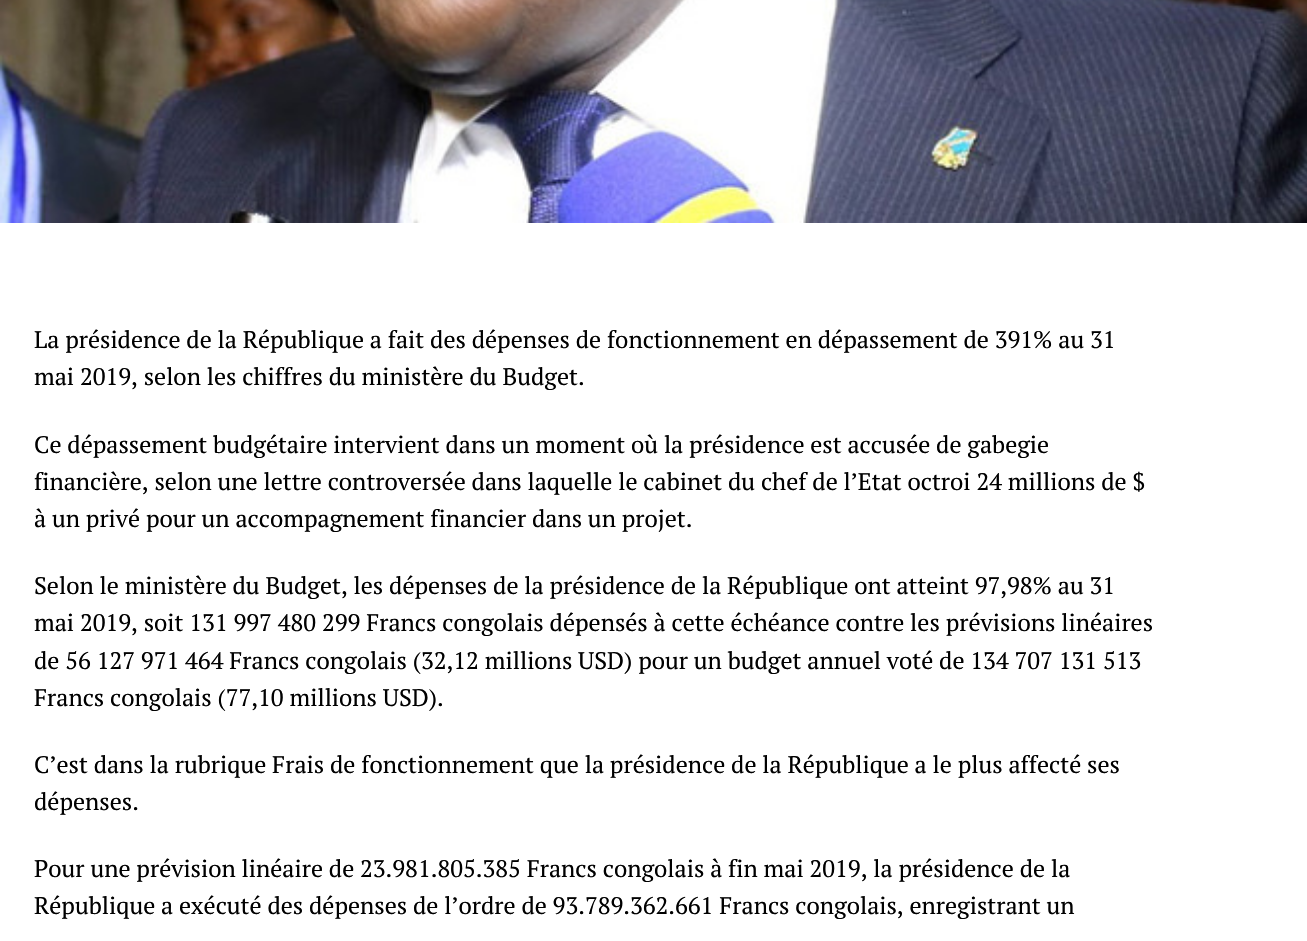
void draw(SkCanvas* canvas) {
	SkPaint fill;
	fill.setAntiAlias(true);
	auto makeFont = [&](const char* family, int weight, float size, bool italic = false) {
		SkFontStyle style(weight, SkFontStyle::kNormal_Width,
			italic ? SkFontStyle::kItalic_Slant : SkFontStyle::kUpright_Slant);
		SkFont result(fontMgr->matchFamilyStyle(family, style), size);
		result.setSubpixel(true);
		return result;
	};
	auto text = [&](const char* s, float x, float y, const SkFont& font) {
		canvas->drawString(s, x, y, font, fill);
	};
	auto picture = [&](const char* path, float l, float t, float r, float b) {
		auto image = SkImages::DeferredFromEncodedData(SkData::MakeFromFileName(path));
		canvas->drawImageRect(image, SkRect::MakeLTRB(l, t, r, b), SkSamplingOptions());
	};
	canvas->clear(0xFFFFFFFF);
	picture("image0.png", 0, 0, 1307, 223);
	auto font1 = makeFont("PT Serif", 400, 24);
	fill.setColor(0xFF000000);
	text("La présidence de la République a fait des dépenses de fonctionnement en dépassement de 391% au 31", 34, 348, font1);
	text("mai 2019, selon les chiffres du ministère du Budget.", 34, 385, font1);
	text("Ce dépassement budgétaire intervient dans un moment où la présidence est accusée de gabegie", 34, 453, font1);
	text("financière, selon une lettre controversée dans laquelle le cabinet du chef de l’Etat octroi 24 millions de $", 34, 490, font1);
	text("à un privé pour un accompagnement financier dans un projet.", 34, 527, font1);
	text("Selon le ministère du Budget, les dépenses de la présidence de la République ont atteint 97,98% au 31", 34, 594, font1);
	text("mai 2019, soit 131 997 480 299 Francs congolais dépensés à cette échéance contre les prévisions linéaires", 34, 631, font1);
	text("de 56 127 971 464 Francs congolais (32,12 millions USD) pour un budget annuel voté de 134 707 131 513", 34, 669, font1);
	text("Francs congolais (77,10 millions USD).", 34, 706, font1);
	text("C’est dans la rubrique Frais de fonctionnement que la présidence de la République a le plus affecté ses", 34, 773, font1);
	text("dépenses.", 34, 810, font1);
	text("Pour une prévision linéaire de 23.981.805.385 Francs congolais à fin mai 2019, la présidence de la", 34, 877, font1);
	text("République a exécuté des dépenses de l’ordre de 93.789.362.661 Francs congolais, enregistrant un", 34, 914, font1);
}
